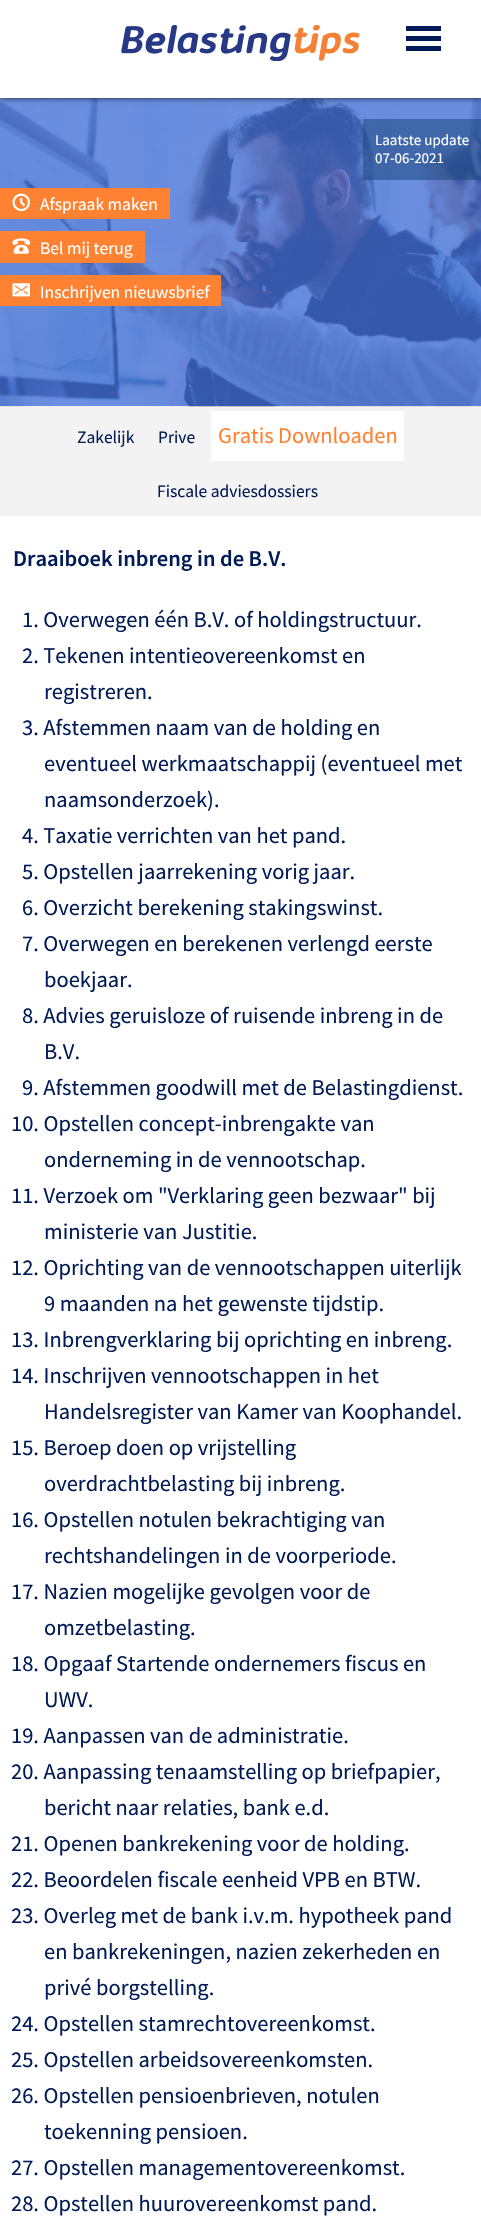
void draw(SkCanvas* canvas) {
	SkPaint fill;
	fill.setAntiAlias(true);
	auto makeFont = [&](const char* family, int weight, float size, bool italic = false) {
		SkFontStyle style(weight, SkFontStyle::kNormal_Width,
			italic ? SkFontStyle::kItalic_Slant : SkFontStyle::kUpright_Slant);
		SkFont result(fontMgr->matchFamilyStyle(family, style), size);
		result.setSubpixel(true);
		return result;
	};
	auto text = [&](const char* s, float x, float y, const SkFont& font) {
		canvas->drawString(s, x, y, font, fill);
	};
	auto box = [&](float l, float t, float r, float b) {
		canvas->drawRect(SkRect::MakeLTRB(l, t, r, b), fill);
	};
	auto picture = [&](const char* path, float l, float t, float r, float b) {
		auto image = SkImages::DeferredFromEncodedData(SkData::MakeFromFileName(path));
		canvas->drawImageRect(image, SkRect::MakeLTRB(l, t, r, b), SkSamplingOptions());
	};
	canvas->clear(0xFFF3F3F3);
	picture("image1.png", 0, 98, 481, 407);
	fill.setColor(0xBF000000);
	fill.setMaskFilter(SkMaskFilter::MakeBlur(kNormal_SkBlurStyle, 3));
	canvas->drawRect(SkRect::MakeLTRB(0, 0, 481, 98), fill);
	fill.setMaskFilter(nullptr);
	fill.setColor(0xFFFFFFFF);
	box(0, 0, 481, 98);
	picture("image0.png", 121, 25, 360, 61);
	fill.setColor(0xFF011B57);
	canvas->drawPath(SkPathBuilder().moveTo(406, 26).lineTo(441, 26).lineTo(441, 31).lineTo(406, 31).close().moveTo(406, 36).lineTo(441, 36).lineTo(441, 41).lineTo(406, 41).close().moveTo(406, 46).lineTo(441, 46).lineTo(441, 51).lineTo(406, 51).close().detach(), fill);
	fill.setColor(0x80154273);
	box(363, 119, 481, 180);
	fill.setColor(0xFFFF8232);
	box(0, 188, 170, 219);
	picture("image2.png", 12, 193, 30, 212);
	box(0, 231, 145, 263);
	picture("image3.png", 12, 238, 30, 254);
	box(0, 275, 221, 306);
	picture("image4.png", 12, 283, 30, 297);
	fill.setColor(0xFFFFFFFF);
	box(211, 411, 404, 461);
	box(0, 516, 481, 2217);
	auto font1 = makeFont("Source Sans Pro", 400, 15);
	text("Laatste update", 375, 145, font1);
	text("07-06-2021", 375, 163, font1);
	auto font2 = makeFont("Source Sans Pro", 400, 17.5f);
	text("Afspraak maken", 40, 210, font2);
	text("Bel mij terug", 40, 254, font2);
	text("Inschrijven nieuwsbrief", 40, 298, font2);
	fill.setColor(0xFF011B57);
	text("Zakelijk", 77, 443, font2);
	text("Prive", 158, 443, font2);
	auto font3 = makeFont("Source Sans Pro", 400, 22.5f);
	fill.setColor(0xFFFF8232);
	text("Gratis Downloaden", 218, 443, font3);
	fill.setColor(0xFF011B57);
	text("Fiscale adviesdossiers", 157, 497, font2);
	auto font4 = makeFont("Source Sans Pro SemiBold", 600, 22.5f);
	text("Draaiboek inbreng in de B.V.", 13, 566, font4);
	text("1. Overwegen één B.V. of holdingstructuur.", 22, 627, font3);
	text("2. Tekenen intentieovereenkomst en", 22, 663, font3);
	text("registreren.", 44, 699, font3);
	text("3. Afstemmen naam van de holding en", 22, 735, font3);
	text("eventueel werkmaatschappij (eventueel met", 44, 771, font3);
	text("naamsonderzoek).", 44, 807, font3);
	text("4. Taxatie verrichten van het pand.", 22, 843, font3);
	text("5. Opstellen jaarrekening vorig jaar.", 22, 879, font3);
	text("6. Overzicht berekening stakingswinst.", 22, 915, font3);
	text("7. Overwegen en berekenen verlengd eerste", 22, 951, font3);
	text("boekjaar.", 44, 987, font3);
	text("8. Advies geruisloze of ruisende inbreng in de", 22, 1023, font3);
	text("B.V.", 44, 1059, font3);
	text("9. Afstemmen goodwill met de Belastingdienst.", 22, 1095, font3);
	text("10. Opstellen concept-inbrengakte van", 11, 1131, font3);
	text("onderneming in de vennootschap.", 44, 1167, font3);
	text("11. Verzoek om \"Verklaring geen bezwaar\" bij", 11, 1203, font3);
	text("ministerie van Justitie.", 44, 1239, font3);
	text("12. Oprichting van de vennootschappen uiterlijk", 11, 1275, font3);
	text("9 maanden na het gewenste tijdstip.", 44, 1311, font3);
	text("13. Inbrengverklaring bij oprichting en inbreng.", 11, 1347, font3);
	text("14. Inschrijven vennootschappen in het", 11, 1383, font3);
	text("Handelsregister van Kamer van Koophandel.", 44, 1419, font3);
	text("15. Beroep doen op vrijstelling", 11, 1455, font3);
	text("overdrachtbelasting bij inbreng.", 44, 1491, font3);
	text("16. Opstellen notulen bekrachtiging van", 11, 1527, font3);
	text("rechtshandelingen in de voorperiode.", 44, 1563, font3);
	text("17. Nazien mogelijke gevolgen voor de", 11, 1599, font3);
	text("omzetbelasting.", 44, 1635, font3);
	text("18. Opgaaf Startende ondernemers fiscus en", 11, 1671, font3);
	text("UWV.", 44, 1707, font3);
	text("19. Aanpassen van de administratie.", 11, 1743, font3);
	text("20. Aanpassing tenaamstelling op briefpapier,", 11, 1779, font3);
	text("bericht naar relaties, bank e.d.", 44, 1815, font3);
	text("21. Openen bankrekening voor de holding.", 11, 1851, font3);
	text("22. Beoordelen fiscale eenheid VPB en BTW.", 11, 1887, font3);
	text("23. Overleg met de bank i.v.m. hypotheek pand", 11, 1923, font3);
	text("en bankrekeningen, nazien zekerheden en", 44, 1959, font3);
	text("privé borgstelling.", 44, 1995, font3);
	text("24. Opstellen stamrechtovereenkomst.", 11, 2031, font3);
	text("25. Opstellen arbeidsovereenkomsten.", 11, 2067, font3);
	text("26. Opstellen pensioenbrieven, notulen", 11, 2103, font3);
	text("toekenning pensioen.", 44, 2139, font3);
	text("27. Opstellen managementovereenkomst.", 11, 2175, font3);
	text("28. Opstellen huurovereenkomst pand.", 11, 2211, font3);
}
